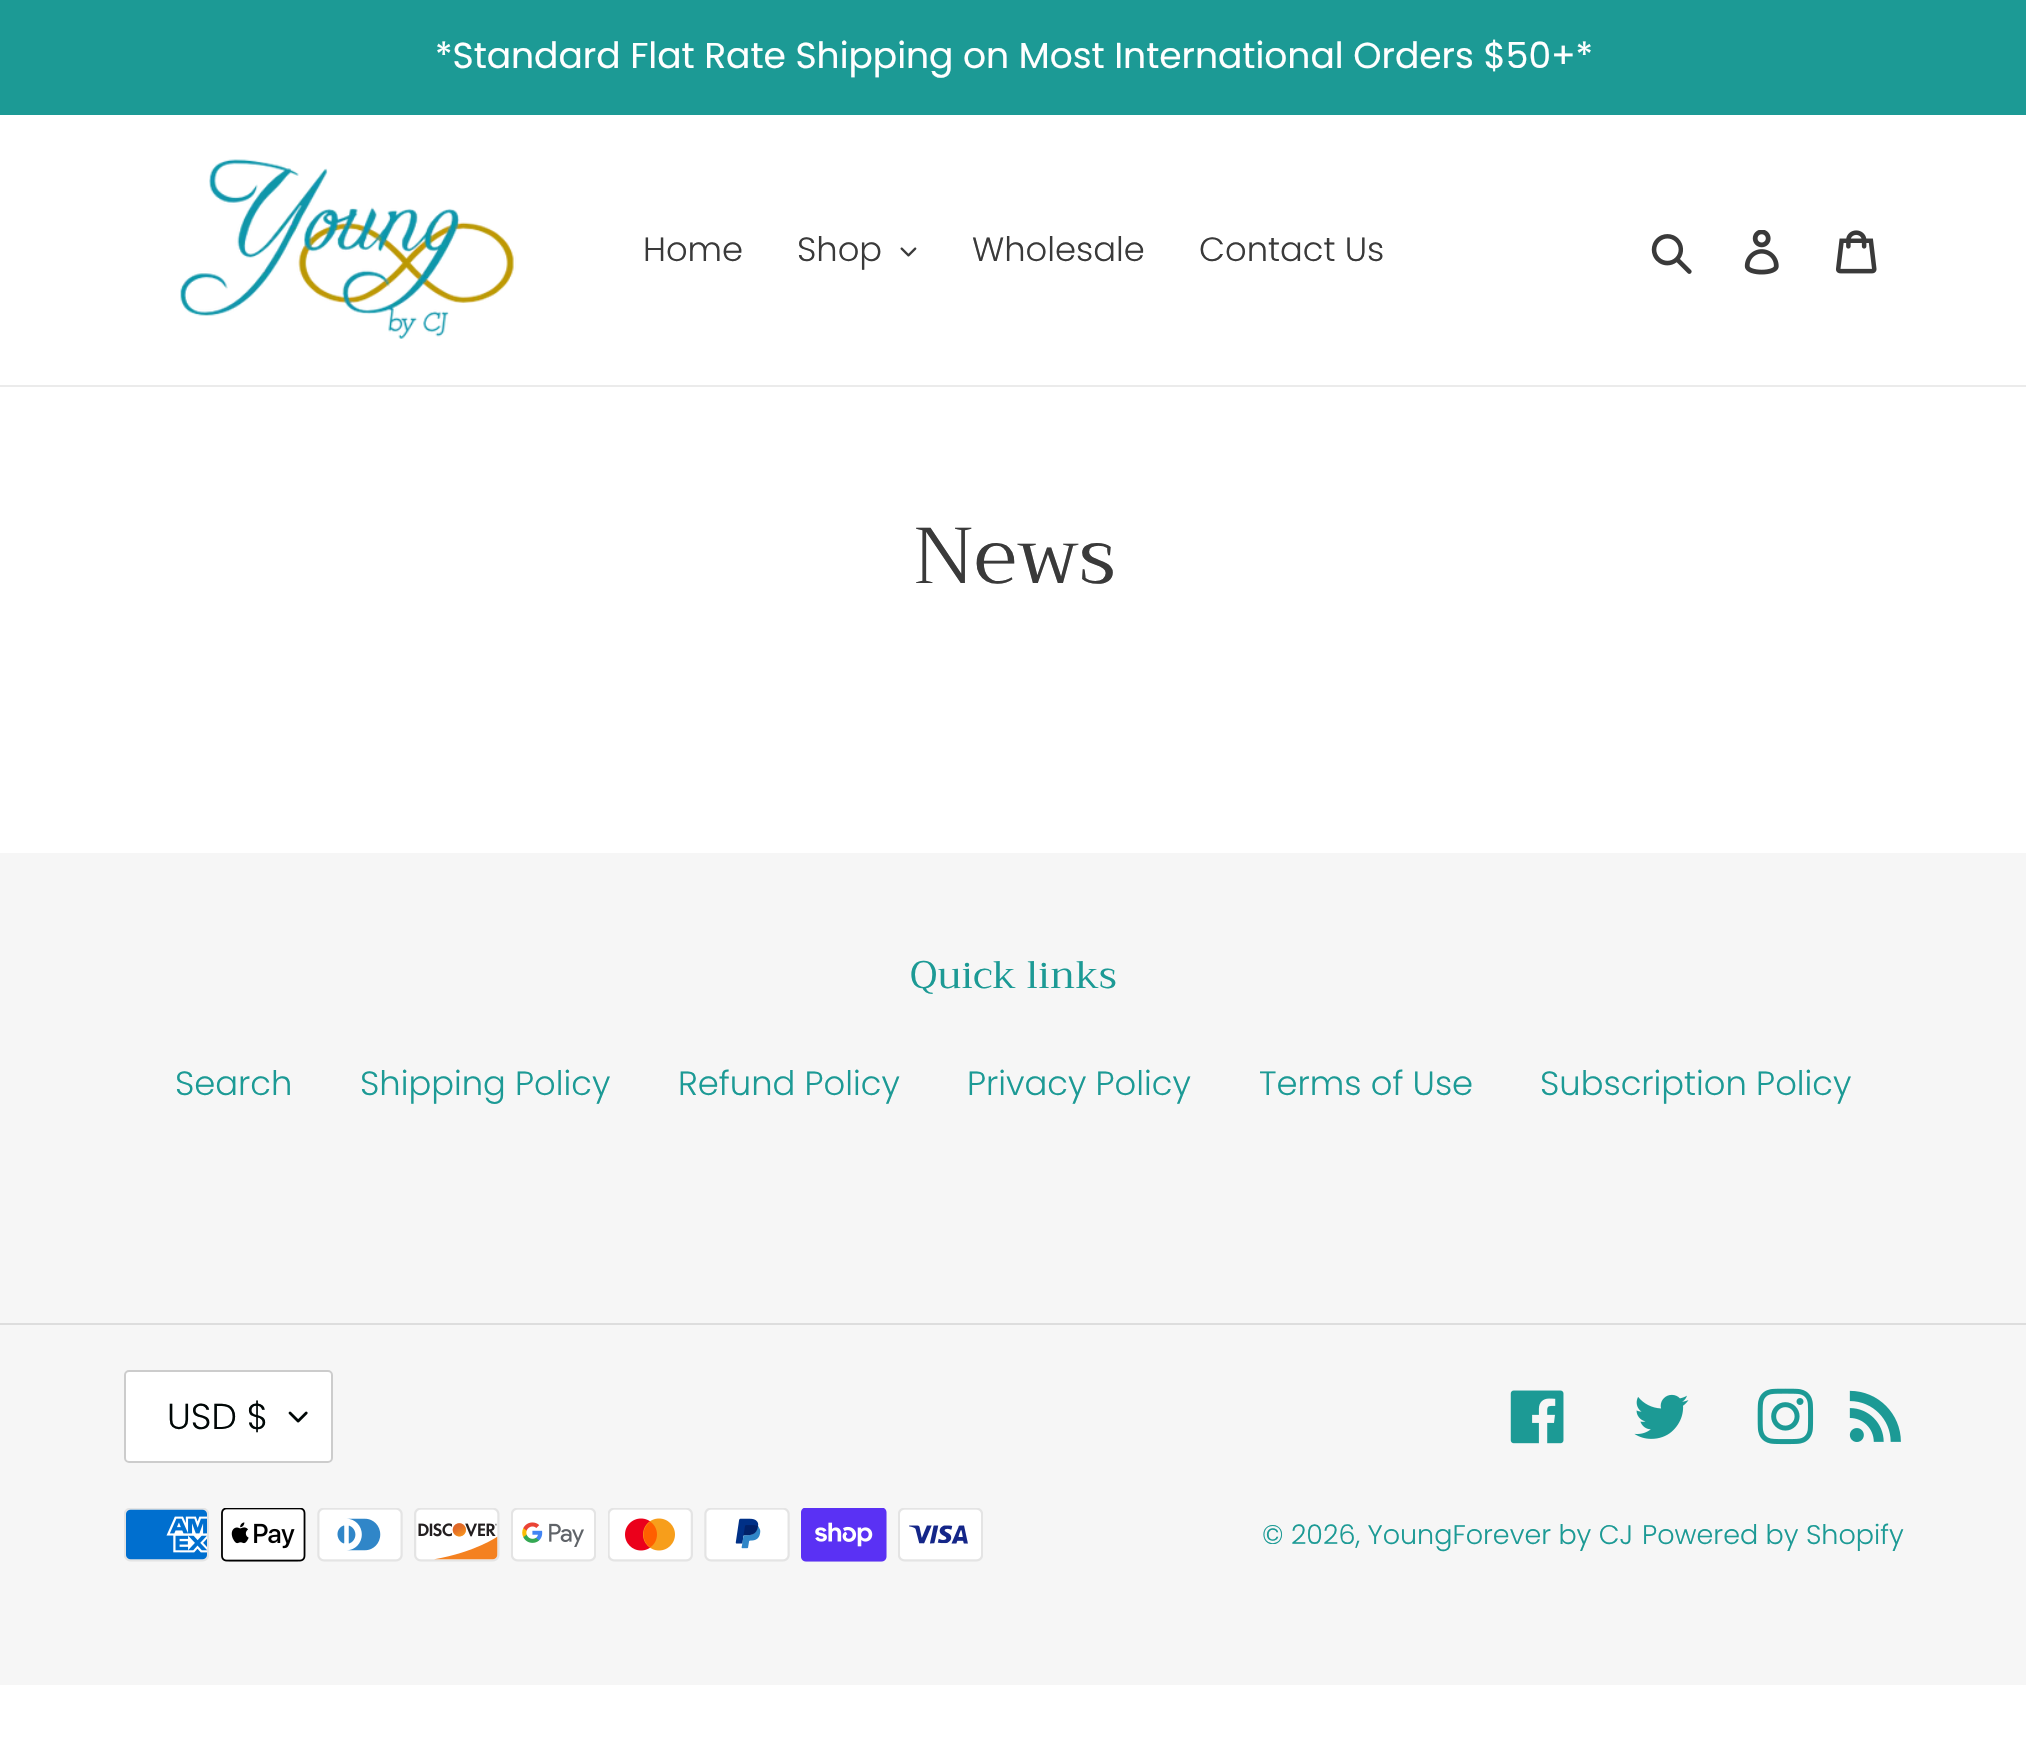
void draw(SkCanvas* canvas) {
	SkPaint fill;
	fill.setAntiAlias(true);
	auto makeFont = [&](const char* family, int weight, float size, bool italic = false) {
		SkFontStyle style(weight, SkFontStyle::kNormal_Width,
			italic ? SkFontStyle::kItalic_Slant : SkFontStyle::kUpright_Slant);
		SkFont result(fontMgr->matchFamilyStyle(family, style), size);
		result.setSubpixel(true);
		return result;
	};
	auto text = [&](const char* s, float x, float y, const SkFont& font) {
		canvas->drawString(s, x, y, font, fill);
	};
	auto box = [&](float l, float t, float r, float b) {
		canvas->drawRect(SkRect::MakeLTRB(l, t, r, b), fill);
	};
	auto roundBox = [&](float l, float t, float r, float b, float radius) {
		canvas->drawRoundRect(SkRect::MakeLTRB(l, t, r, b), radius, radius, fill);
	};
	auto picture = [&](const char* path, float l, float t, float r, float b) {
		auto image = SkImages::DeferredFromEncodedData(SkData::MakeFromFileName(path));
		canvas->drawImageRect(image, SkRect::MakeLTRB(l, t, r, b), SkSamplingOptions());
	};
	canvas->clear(0xFFFFFFFF);
	fill.setColor(0xFF1C9A95);
	box(0, 0, 2026, 115);
	fill.setColor(0xFFEBEBEB);
	box(0, 385, 2026, 387);
	picture("image0.png", 180, 159, 516, 339);
	picture("image1.png", 900, 247, 917, 257);
	picture("image2.png", 1651, 234, 1692, 274);
	picture("image3.png", 1744, 230, 1779, 275);
	picture("image4.png", 1836, 230, 1877, 274);
	fill.setColor(0xFFF6F6F6);
	box(0, 853, 2026, 1685);
	fill.setColor(0xFFDDDDDD);
	box(0, 1323, 2026, 1325);
	fill.setColor(0xFFFFFFFF);
	roundBox(124, 1370, 333, 1463, 5);
	picture("image5.png", 288, 1411, 308, 1423);
	fill.setStyle(SkPaint::kStroke_Style);
	fill.setStrokeWidth(2);
	fill.setColor(0xFFCCCCCC);
	canvas->drawRoundRect(SkRect::MakeLTRB(125, 1371, 332, 1462), 4, 4, fill);
	picture("image6.png", 1510, 1390, 1564, 1444);
	picture("image7.png", 1634, 1394, 1689, 1439);
	picture("image8.png", 1757, 1388, 1814, 1445);
	picture("image9.png", 1849, 1390, 1901, 1442);
	picture("image10.png", 124, 1508, 209, 1562);
	picture("image11.png", 221, 1508, 306, 1562);
	picture("image12.png", 317, 1508, 403, 1562);
	picture("image13.png", 414, 1508, 500, 1562);
	picture("image14.png", 511, 1508, 596, 1562);
	picture("image15.png", 608, 1508, 693, 1562);
	picture("image16.png", 704, 1508, 790, 1562);
	picture("image17.png", 801, 1508, 887, 1562);
	picture("image18.png", 898, 1508, 983, 1562);
	auto font1 = makeFont("Poppins", 400, 36);
	fill.setStyle(SkPaint::kFill_Style);
	fill.setColor(0xFFFFFFFF);
	text("*Standard Flat Rate Shipping on Most International Orders $50+*", 435, 68, font1);
	auto font2 = makeFont("Poppins", 300, 33.75f);
	fill.setColor(0xFF3A3A3A);
	text("Home", 643, 261, font2);
	text("Shop", 797, 261, font2);
	text("Wholesale", 972, 261, font2);
	text("Contact Us", 1199, 261, font2);
	auto font3 = makeFont("Trirong", 400, 79);
	text("News", 913, 583, font3);
	auto font4 = makeFont("Trirong", 400, 38.25f);
	fill.setColor(0xFF1C9A95);
	text("Quick links", 910, 988, font4);
	text("Search", 175, 1095, font2);
	text("Shipping Policy", 360, 1095, font2);
	text("Refund Policy", 678, 1095, font2);
	text("Privacy Policy", 967, 1095, font2);
	text("Terms of Use", 1259, 1095, font2);
	text("Subscription Policy", 1540, 1095, font2);
	auto font5 = makeFont("Poppins", 300, 36);
	fill.setColor(0xFF000706);
	text("USD $", 167, 1429, font5);
	auto font6 = makeFont("Poppins", 300, 27);
	fill.setColor(0xFF1C9A95);
	text("© 2026, YoungForever by CJ", 1262, 1544, font6);
	text("Powered by Shopify", 1642, 1544, font6);
}
